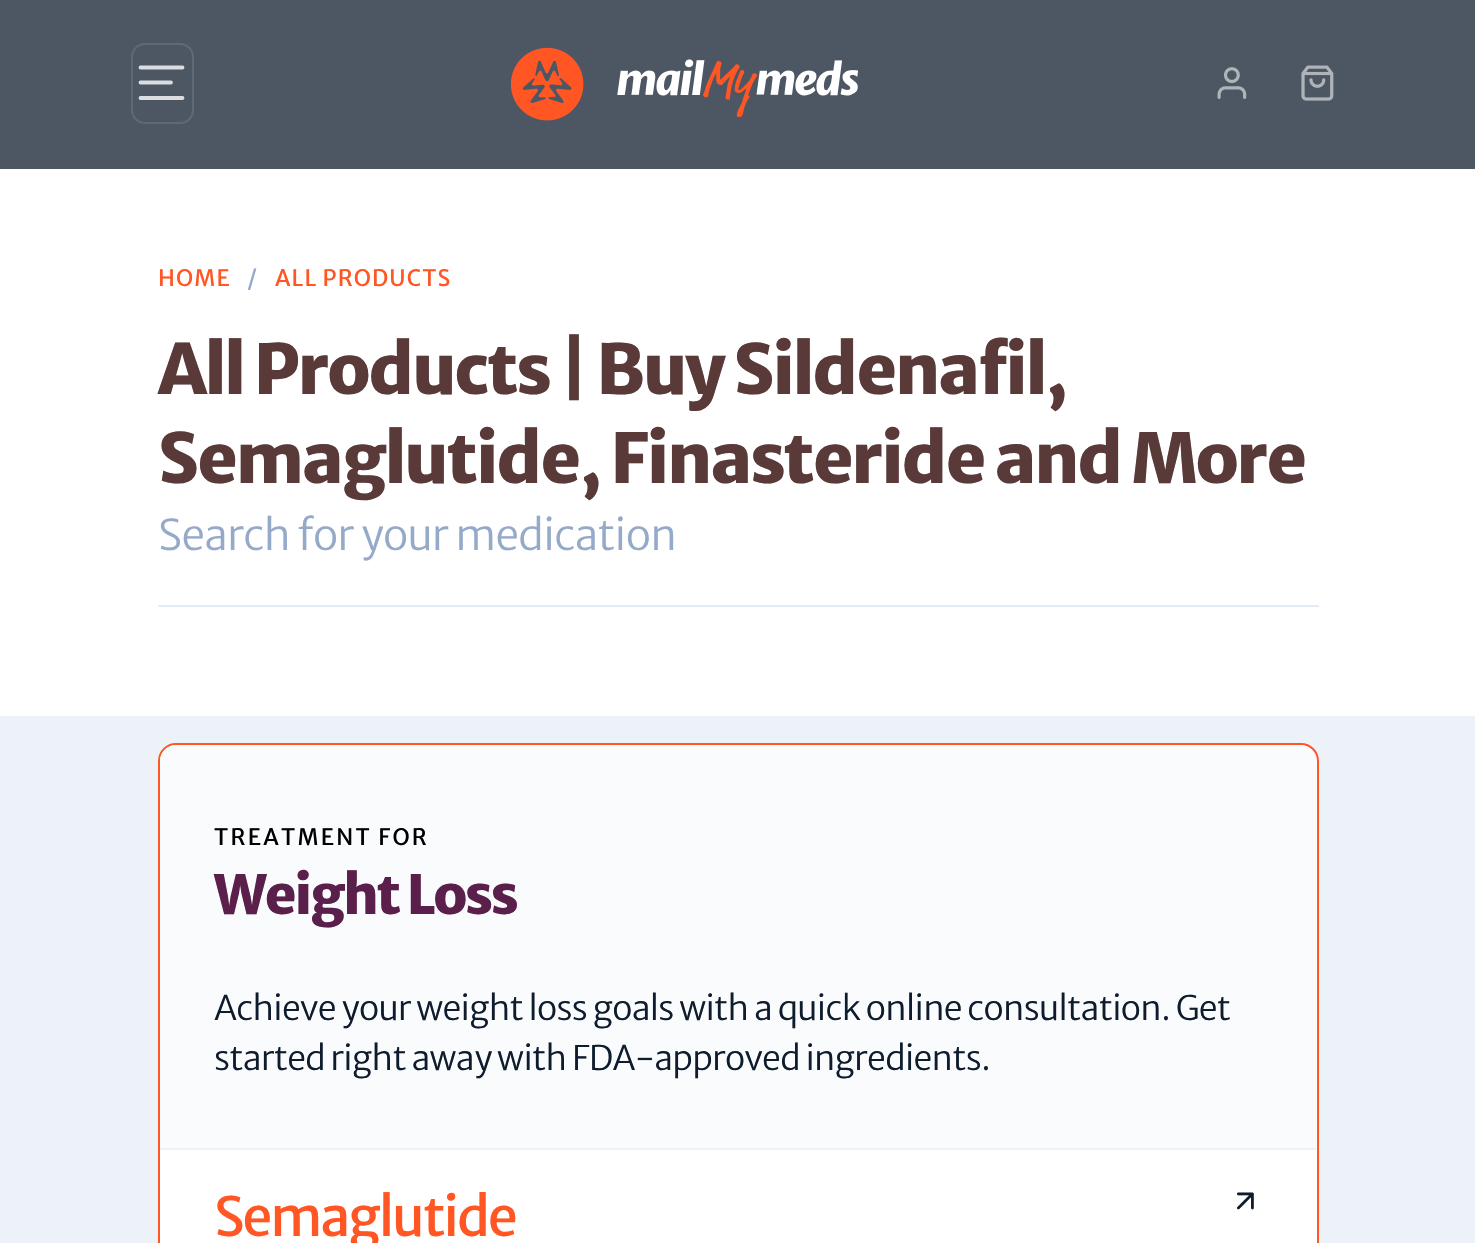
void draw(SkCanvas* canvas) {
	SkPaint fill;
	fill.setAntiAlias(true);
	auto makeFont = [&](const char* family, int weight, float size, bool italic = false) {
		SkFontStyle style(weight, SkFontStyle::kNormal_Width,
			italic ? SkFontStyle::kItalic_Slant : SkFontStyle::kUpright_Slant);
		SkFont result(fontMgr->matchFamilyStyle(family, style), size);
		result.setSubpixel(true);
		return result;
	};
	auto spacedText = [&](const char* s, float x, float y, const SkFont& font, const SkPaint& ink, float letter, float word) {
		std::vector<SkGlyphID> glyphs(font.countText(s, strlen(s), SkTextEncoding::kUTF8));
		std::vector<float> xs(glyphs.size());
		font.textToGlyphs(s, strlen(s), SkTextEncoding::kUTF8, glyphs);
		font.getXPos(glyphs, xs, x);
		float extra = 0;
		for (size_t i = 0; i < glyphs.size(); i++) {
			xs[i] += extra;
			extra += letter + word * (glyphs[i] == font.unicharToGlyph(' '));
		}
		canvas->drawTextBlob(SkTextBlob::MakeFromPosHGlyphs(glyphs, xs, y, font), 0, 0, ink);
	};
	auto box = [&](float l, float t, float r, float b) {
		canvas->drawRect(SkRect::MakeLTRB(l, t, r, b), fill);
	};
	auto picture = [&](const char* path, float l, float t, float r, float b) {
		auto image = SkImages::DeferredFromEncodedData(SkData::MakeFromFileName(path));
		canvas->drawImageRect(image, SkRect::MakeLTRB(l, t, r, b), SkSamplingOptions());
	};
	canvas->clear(0xFFFFFFFF);
	fill.setColor(0xFF4D5764);
	box(0, 0, 1475, 169);
	fill.setStyle(SkPaint::kStroke_Style);
	fill.setStrokeWidth(2);
	fill.setColor(0xFF5F6874);
	canvas->drawRoundRect(SkRect::MakeLTRB(132, 44, 193, 123), 13, 13, fill);
	fill.setStrokeWidth(3.8f);
	fill.setStrokeCap(SkPaint::kRound_Cap);
	fill.setColor(0xFFDBDDE0);
	canvas->drawPath(SkPathBuilder().moveTo(140.5f, 67.5f).lineTo(182.5f, 67.5f).moveTo(140.5f, 82.5f).lineTo(171, 82.5f).moveTo(140.5f, 98).lineTo(182.5f, 98).detach(), fill);
	picture("image0.png", 510, 47, 858, 121);
	picture("image1.png", 1217, 67, 1247, 99);
	picture("image2.png", 1301, 65, 1334, 101);
	fill.setStyle(SkPaint::kFill_Style);
	fill.setColor(0xFFE3EBF6);
	box(158, 605, 1319, 607);
	fill.setColor(0xFFEDF2F9);
	box(0, 716, 1475, 1243);
	fill.setColor(0xFFFFFFFF);
	canvas->drawRoundRect(SkRect::MakeLTRB(159, 744, 1318, 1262), 17, 17, fill);
	fill.setStyle(SkPaint::kStroke_Style);
	fill.setStrokeWidth(2);
	fill.setStrokeCap(SkPaint::kButt_Cap);
	fill.setColor(0xFFFF5623);
	canvas->drawRoundRect(SkRect::MakeLTRB(159, 744, 1318, 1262), 17, 17, fill);
	fill.setStyle(SkPaint::kFill_Style);
	fill.setColor(0xFFF9FBFD);
	canvas->drawPath(SkPathBuilder().moveTo(176, 745).lineTo(1300, 745).cubicTo(1309, 745, 1316, 752, 1316, 761).lineTo(1316, 1150).lineTo(160, 1150).lineTo(160, 761).cubicTo(160, 752, 167, 745, 176, 745).close().detach(), fill);
	fill.setColor(0xFFEDF2F9);
	box(160, 1148, 1316, 1150);
	picture("image3.png", 1237, 1192, 1254, 1210);
	auto font1 = makeFont("Merriweather Sans", 400, 22.5f);
	fill.setColor(0xFFFF5623);
	spacedText("HOME", 158, 286, font1, fill, 1.1f, 0);
	fill.setColor(0xFF95AAC9);
	spacedText("/", 247, 286, font1, fill, 1.1f, 0);
	fill.setColor(0xFFFF5623);
	spacedText("ALL PRODUCTS", 275, 286, font1, fill, 1.1f, 0);
	auto font2 = makeFont("Merriweather Sans", 800, 68.75f);
	fill.setColor(0xFF5A3939);
	spacedText("All Products | Buy Sildenafil,", 158, 394, font2, fill, -2.25f, 0);
	spacedText("Semaglutide, Finasteride and More", 158, 483, font2, fill, -2.25f, 0);
	auto font3 = makeFont("Merriweather Sans", 300, 42.25f);
	fill.setColor(0xFF95AAC9);
	spacedText("Search for your medication", 158, 550, font3, fill, -0.67f, 0);
	fill.setColor(0xFF000000);
	spacedText("TREATMENT FOR", 214, 845, font1, fill, 2.25f, 0);
	auto font4 = makeFont("Merriweather Sans", 800, 54);
	fill.setColor(0xFF5A204B);
	spacedText("Weight Loss", 214, 914, font4, fill, -2.25f, 0);
	auto font5 = makeFont("Merriweather Sans", 300, 33.75f);
	fill.setColor(0xFF0E1C2D);
	spacedText("Achieve your weight loss goals with a quick online consultation. Get", 214, 1020, font5, fill, -0.67f, 0);
	spacedText("started right away with FDA-approved ingredients.", 214, 1070, font5, fill, -0.67f, 0);
	auto font6 = makeFont("Merriweather Sans", 400, 54);
	fill.setColor(0xFFFF5623);
	spacedText("Semaglutide", 214, 1236, font6, fill, -2.25f, 0);
}
